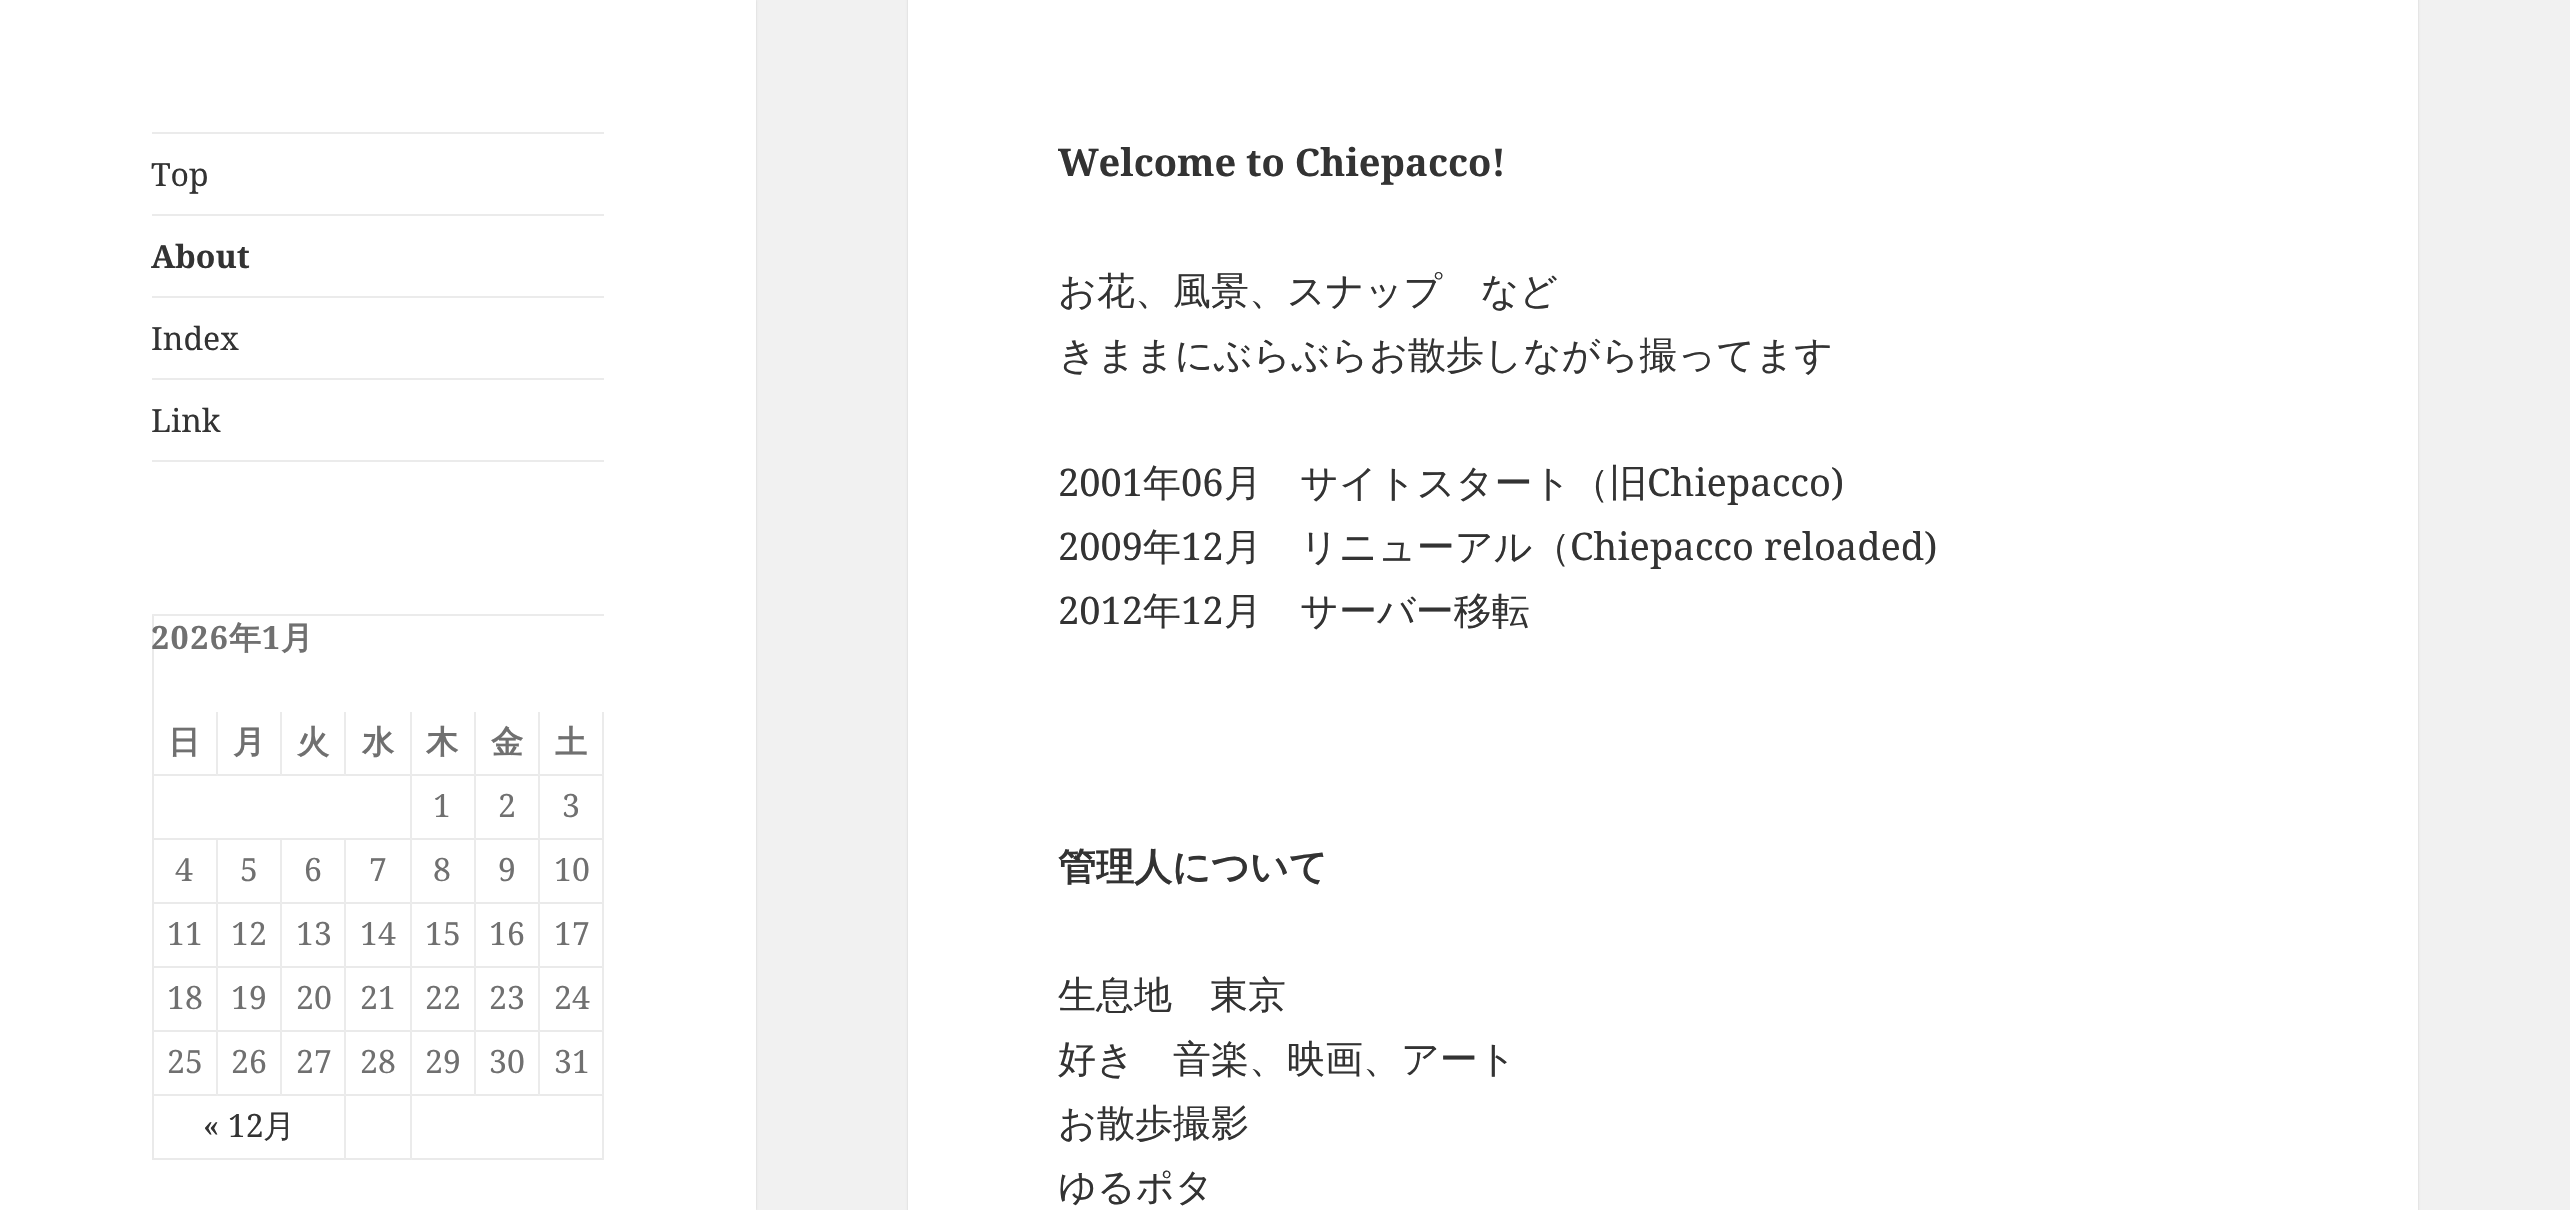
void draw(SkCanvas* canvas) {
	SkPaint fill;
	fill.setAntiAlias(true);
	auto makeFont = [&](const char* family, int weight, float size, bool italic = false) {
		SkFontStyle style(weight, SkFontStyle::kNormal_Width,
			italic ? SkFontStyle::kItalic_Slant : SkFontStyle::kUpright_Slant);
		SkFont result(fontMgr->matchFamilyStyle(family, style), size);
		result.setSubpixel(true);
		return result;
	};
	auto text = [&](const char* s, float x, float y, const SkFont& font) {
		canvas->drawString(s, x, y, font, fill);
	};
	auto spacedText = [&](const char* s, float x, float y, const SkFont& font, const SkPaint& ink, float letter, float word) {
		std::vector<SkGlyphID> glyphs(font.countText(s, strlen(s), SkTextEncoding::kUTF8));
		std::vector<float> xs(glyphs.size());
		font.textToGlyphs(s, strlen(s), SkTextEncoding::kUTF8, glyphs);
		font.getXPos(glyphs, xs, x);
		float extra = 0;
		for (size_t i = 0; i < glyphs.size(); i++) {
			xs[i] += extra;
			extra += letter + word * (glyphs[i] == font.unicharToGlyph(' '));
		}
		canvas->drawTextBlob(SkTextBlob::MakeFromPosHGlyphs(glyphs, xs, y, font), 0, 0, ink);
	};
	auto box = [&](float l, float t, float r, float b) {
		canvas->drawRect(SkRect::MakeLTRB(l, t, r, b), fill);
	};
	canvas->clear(0xFFF1F1F1);
	fill.setColor(0x26000000);
	fill.setMaskFilter(SkMaskFilter::MakeBlur(kNormal_SkBlurStyle, 1));
	canvas->drawRect(SkRect::MakeLTRB(0, 0, 756, 1210), fill);
	fill.setMaskFilter(nullptr);
	fill.setColor(0xFFFFFFFF);
	box(0, 0, 756, 1210);
	fill.setColor(0xFFEBEBEB);
	box(152, 132, 604, 134);
	box(152, 460, 604, 462);
	box(152, 214, 604, 216);
	box(152, 296, 604, 298);
	box(152, 378, 604, 380);
	canvas->drawPath(SkPathBuilder().moveTo(152, 614).lineTo(604, 614).lineTo(604, 616).lineTo(154, 616).close().detach(), fill);
	fill.setColor(0x1A333333);
	canvas->drawPath(SkPathBuilder().moveTo(152, 1160).lineTo(152, 614).lineTo(154, 616).lineTo(154, 1160).close().detach(), fill);
	fill.setColor(0xFFEBEBEB);
	canvas->drawPath(SkPathBuilder().moveTo(218, 712).lineTo(218, 776).lineTo(216, 774).lineTo(216, 712).close().detach(), fill);
	fill.setColor(0x1A333333);
	canvas->drawPath(SkPathBuilder().moveTo(218, 776).lineTo(154, 776).lineTo(154, 774).lineTo(216, 774).close().detach(), fill);
	fill.setColor(0xFFEBEBEB);
	canvas->drawPath(SkPathBuilder().moveTo(282, 712).lineTo(282, 776).lineTo(280, 774).lineTo(280, 712).close().detach(), fill);
	fill.setColor(0x1A333333);
	canvas->drawPath(SkPathBuilder().moveTo(282, 776).lineTo(218, 776).lineTo(218, 774).lineTo(280, 774).close().detach(), fill);
	fill.setColor(0xFFEBEBEB);
	canvas->drawPath(SkPathBuilder().moveTo(346, 712).lineTo(346, 776).lineTo(344, 774).lineTo(344, 712).close().detach(), fill);
	fill.setColor(0x1A333333);
	canvas->drawPath(SkPathBuilder().moveTo(346, 776).lineTo(282, 776).lineTo(282, 774).lineTo(344, 774).close().detach(), fill);
	fill.setColor(0xFFEBEBEB);
	canvas->drawPath(SkPathBuilder().moveTo(412, 712).lineTo(412, 776).lineTo(410, 774).lineTo(410, 712).close().detach(), fill);
	fill.setColor(0x1A333333);
	canvas->drawPath(SkPathBuilder().moveTo(412, 776).lineTo(346, 776).lineTo(346, 774).lineTo(410, 774).close().detach(), fill);
	fill.setColor(0xFFEBEBEB);
	canvas->drawPath(SkPathBuilder().moveTo(476, 712).lineTo(476, 776).lineTo(474, 774).lineTo(474, 712).close().detach(), fill);
	fill.setColor(0x1A333333);
	canvas->drawPath(SkPathBuilder().moveTo(476, 776).lineTo(412, 776).lineTo(412, 774).lineTo(474, 774).close().detach(), fill);
	fill.setColor(0xFFEBEBEB);
	canvas->drawPath(SkPathBuilder().moveTo(540, 712).lineTo(540, 776).lineTo(538, 774).lineTo(538, 712).close().detach(), fill);
	fill.setColor(0x1A333333);
	canvas->drawPath(SkPathBuilder().moveTo(540, 776).lineTo(476, 776).lineTo(476, 774).lineTo(538, 774).close().detach(), fill);
	fill.setColor(0xFFEBEBEB);
	canvas->drawPath(SkPathBuilder().moveTo(604, 712).lineTo(604, 776).lineTo(602, 774).lineTo(602, 712).close().detach(), fill);
	fill.setColor(0x1A333333);
	canvas->drawPath(SkPathBuilder().moveTo(604, 776).lineTo(540, 776).lineTo(540, 774).lineTo(602, 774).close().detach(), fill);
	fill.setColor(0xFFEBEBEB);
	canvas->drawPath(SkPathBuilder().moveTo(412, 776).lineTo(412, 840).lineTo(410, 838).lineTo(410, 776).close().detach(), fill);
	fill.setColor(0x1A333333);
	canvas->drawPath(SkPathBuilder().moveTo(412, 840).lineTo(154, 840).lineTo(154, 838).lineTo(410, 838).close().detach(), fill);
	fill.setColor(0xFFEBEBEB);
	canvas->drawPath(SkPathBuilder().moveTo(476, 776).lineTo(476, 840).lineTo(474, 838).lineTo(474, 776).close().detach(), fill);
	fill.setColor(0x1A333333);
	canvas->drawPath(SkPathBuilder().moveTo(476, 840).lineTo(412, 840).lineTo(412, 838).lineTo(474, 838).close().detach(), fill);
	fill.setColor(0xFFEBEBEB);
	canvas->drawPath(SkPathBuilder().moveTo(540, 776).lineTo(540, 840).lineTo(538, 838).lineTo(538, 776).close().detach(), fill);
	fill.setColor(0x1A333333);
	canvas->drawPath(SkPathBuilder().moveTo(540, 840).lineTo(476, 840).lineTo(476, 838).lineTo(538, 838).close().detach(), fill);
	fill.setColor(0xFFEBEBEB);
	canvas->drawPath(SkPathBuilder().moveTo(604, 776).lineTo(604, 840).lineTo(602, 838).lineTo(602, 776).close().detach(), fill);
	fill.setColor(0x1A333333);
	canvas->drawPath(SkPathBuilder().moveTo(604, 840).lineTo(540, 840).lineTo(540, 838).lineTo(602, 838).close().detach(), fill);
	fill.setColor(0xFFEBEBEB);
	canvas->drawPath(SkPathBuilder().moveTo(218, 840).lineTo(218, 904).lineTo(216, 902).lineTo(216, 840).close().detach(), fill);
	fill.setColor(0x1A333333);
	canvas->drawPath(SkPathBuilder().moveTo(218, 904).lineTo(154, 904).lineTo(154, 902).lineTo(216, 902).close().detach(), fill);
	fill.setColor(0xFFEBEBEB);
	canvas->drawPath(SkPathBuilder().moveTo(282, 840).lineTo(282, 904).lineTo(280, 902).lineTo(280, 840).close().detach(), fill);
	fill.setColor(0x1A333333);
	canvas->drawPath(SkPathBuilder().moveTo(282, 904).lineTo(218, 904).lineTo(218, 902).lineTo(280, 902).close().detach(), fill);
	fill.setColor(0xFFEBEBEB);
	canvas->drawPath(SkPathBuilder().moveTo(346, 840).lineTo(346, 904).lineTo(344, 902).lineTo(344, 840).close().detach(), fill);
	fill.setColor(0x1A333333);
	canvas->drawPath(SkPathBuilder().moveTo(346, 904).lineTo(282, 904).lineTo(282, 902).lineTo(344, 902).close().detach(), fill);
	fill.setColor(0xFFEBEBEB);
	canvas->drawPath(SkPathBuilder().moveTo(412, 840).lineTo(412, 904).lineTo(410, 902).lineTo(410, 840).close().detach(), fill);
	fill.setColor(0x1A333333);
	canvas->drawPath(SkPathBuilder().moveTo(412, 904).lineTo(346, 904).lineTo(346, 902).lineTo(410, 902).close().detach(), fill);
	fill.setColor(0xFFEBEBEB);
	canvas->drawPath(SkPathBuilder().moveTo(476, 840).lineTo(476, 904).lineTo(474, 902).lineTo(474, 840).close().detach(), fill);
	fill.setColor(0x1A333333);
	canvas->drawPath(SkPathBuilder().moveTo(476, 904).lineTo(412, 904).lineTo(412, 902).lineTo(474, 902).close().detach(), fill);
	fill.setColor(0xFFEBEBEB);
	canvas->drawPath(SkPathBuilder().moveTo(540, 840).lineTo(540, 904).lineTo(538, 902).lineTo(538, 840).close().detach(), fill);
	fill.setColor(0x1A333333);
	canvas->drawPath(SkPathBuilder().moveTo(540, 904).lineTo(476, 904).lineTo(476, 902).lineTo(538, 902).close().detach(), fill);
	fill.setColor(0xFFEBEBEB);
	canvas->drawPath(SkPathBuilder().moveTo(604, 840).lineTo(604, 904).lineTo(602, 902).lineTo(602, 840).close().detach(), fill);
	fill.setColor(0x1A333333);
	canvas->drawPath(SkPathBuilder().moveTo(604, 904).lineTo(540, 904).lineTo(540, 902).lineTo(602, 902).close().detach(), fill);
	fill.setColor(0xFFEBEBEB);
	canvas->drawPath(SkPathBuilder().moveTo(218, 904).lineTo(218, 968).lineTo(216, 966).lineTo(216, 904).close().detach(), fill);
	fill.setColor(0x1A333333);
	canvas->drawPath(SkPathBuilder().moveTo(218, 968).lineTo(154, 968).lineTo(154, 966).lineTo(216, 966).close().detach(), fill);
	fill.setColor(0xFFEBEBEB);
	canvas->drawPath(SkPathBuilder().moveTo(282, 904).lineTo(282, 968).lineTo(280, 966).lineTo(280, 904).close().detach(), fill);
	fill.setColor(0x1A333333);
	canvas->drawPath(SkPathBuilder().moveTo(282, 968).lineTo(218, 968).lineTo(218, 966).lineTo(280, 966).close().detach(), fill);
	fill.setColor(0xFFEBEBEB);
	canvas->drawPath(SkPathBuilder().moveTo(346, 904).lineTo(346, 968).lineTo(344, 966).lineTo(344, 904).close().detach(), fill);
	fill.setColor(0x1A333333);
	canvas->drawPath(SkPathBuilder().moveTo(346, 968).lineTo(282, 968).lineTo(282, 966).lineTo(344, 966).close().detach(), fill);
	fill.setColor(0xFFEBEBEB);
	canvas->drawPath(SkPathBuilder().moveTo(412, 904).lineTo(412, 968).lineTo(410, 966).lineTo(410, 904).close().detach(), fill);
	fill.setColor(0x1A333333);
	canvas->drawPath(SkPathBuilder().moveTo(412, 968).lineTo(346, 968).lineTo(346, 966).lineTo(410, 966).close().detach(), fill);
	fill.setColor(0xFFEBEBEB);
	canvas->drawPath(SkPathBuilder().moveTo(476, 904).lineTo(476, 968).lineTo(474, 966).lineTo(474, 904).close().detach(), fill);
	fill.setColor(0x1A333333);
	canvas->drawPath(SkPathBuilder().moveTo(476, 968).lineTo(412, 968).lineTo(412, 966).lineTo(474, 966).close().detach(), fill);
	fill.setColor(0xFFEBEBEB);
	canvas->drawPath(SkPathBuilder().moveTo(540, 904).lineTo(540, 968).lineTo(538, 966).lineTo(538, 904).close().detach(), fill);
	fill.setColor(0x1A333333);
	canvas->drawPath(SkPathBuilder().moveTo(540, 968).lineTo(476, 968).lineTo(476, 966).lineTo(538, 966).close().detach(), fill);
	fill.setColor(0xFFEBEBEB);
	canvas->drawPath(SkPathBuilder().moveTo(604, 904).lineTo(604, 968).lineTo(602, 966).lineTo(602, 904).close().detach(), fill);
	fill.setColor(0x1A333333);
	canvas->drawPath(SkPathBuilder().moveTo(604, 968).lineTo(540, 968).lineTo(540, 966).lineTo(602, 966).close().detach(), fill);
	fill.setColor(0xFFEBEBEB);
	canvas->drawPath(SkPathBuilder().moveTo(218, 968).lineTo(218, 1032).lineTo(216, 1030).lineTo(216, 968).close().detach(), fill);
	fill.setColor(0x1A333333);
	canvas->drawPath(SkPathBuilder().moveTo(218, 1032).lineTo(154, 1032).lineTo(154, 1030).lineTo(216, 1030).close().detach(), fill);
	fill.setColor(0xFFEBEBEB);
	canvas->drawPath(SkPathBuilder().moveTo(282, 968).lineTo(282, 1032).lineTo(280, 1030).lineTo(280, 968).close().detach(), fill);
	fill.setColor(0x1A333333);
	canvas->drawPath(SkPathBuilder().moveTo(282, 1032).lineTo(218, 1032).lineTo(218, 1030).lineTo(280, 1030).close().detach(), fill);
	fill.setColor(0xFFEBEBEB);
	canvas->drawPath(SkPathBuilder().moveTo(346, 968).lineTo(346, 1032).lineTo(344, 1030).lineTo(344, 968).close().detach(), fill);
	fill.setColor(0x1A333333);
	canvas->drawPath(SkPathBuilder().moveTo(346, 1032).lineTo(282, 1032).lineTo(282, 1030).lineTo(344, 1030).close().detach(), fill);
	fill.setColor(0xFFEBEBEB);
	canvas->drawPath(SkPathBuilder().moveTo(412, 968).lineTo(412, 1032).lineTo(410, 1030).lineTo(410, 968).close().detach(), fill);
	fill.setColor(0x1A333333);
	canvas->drawPath(SkPathBuilder().moveTo(412, 1032).lineTo(346, 1032).lineTo(346, 1030).lineTo(410, 1030).close().detach(), fill);
	fill.setColor(0xFFEBEBEB);
	canvas->drawPath(SkPathBuilder().moveTo(476, 968).lineTo(476, 1032).lineTo(474, 1030).lineTo(474, 968).close().detach(), fill);
	fill.setColor(0x1A333333);
	canvas->drawPath(SkPathBuilder().moveTo(476, 1032).lineTo(412, 1032).lineTo(412, 1030).lineTo(474, 1030).close().detach(), fill);
	fill.setColor(0xFFEBEBEB);
	canvas->drawPath(SkPathBuilder().moveTo(540, 968).lineTo(540, 1032).lineTo(538, 1030).lineTo(538, 968).close().detach(), fill);
	fill.setColor(0x1A333333);
	canvas->drawPath(SkPathBuilder().moveTo(540, 1032).lineTo(476, 1032).lineTo(476, 1030).lineTo(538, 1030).close().detach(), fill);
	fill.setColor(0xFFEBEBEB);
	canvas->drawPath(SkPathBuilder().moveTo(604, 968).lineTo(604, 1032).lineTo(602, 1030).lineTo(602, 968).close().detach(), fill);
	fill.setColor(0x1A333333);
	canvas->drawPath(SkPathBuilder().moveTo(604, 1032).lineTo(540, 1032).lineTo(540, 1030).lineTo(602, 1030).close().detach(), fill);
	fill.setColor(0xFFEBEBEB);
	canvas->drawPath(SkPathBuilder().moveTo(218, 1032).lineTo(218, 1096).lineTo(216, 1094).lineTo(216, 1032).close().detach(), fill);
	fill.setColor(0x1A333333);
	canvas->drawPath(SkPathBuilder().moveTo(218, 1096).lineTo(154, 1096).lineTo(154, 1094).lineTo(216, 1094).close().detach(), fill);
	fill.setColor(0xFFEBEBEB);
	canvas->drawPath(SkPathBuilder().moveTo(282, 1032).lineTo(282, 1096).lineTo(280, 1094).lineTo(280, 1032).close().detach(), fill);
	fill.setColor(0x1A333333);
	canvas->drawPath(SkPathBuilder().moveTo(282, 1096).lineTo(218, 1096).lineTo(218, 1094).lineTo(280, 1094).close().detach(), fill);
	fill.setColor(0xFFEBEBEB);
	canvas->drawPath(SkPathBuilder().moveTo(346, 1032).lineTo(346, 1096).lineTo(344, 1094).lineTo(344, 1032).close().detach(), fill);
	fill.setColor(0x1A333333);
	canvas->drawPath(SkPathBuilder().moveTo(346, 1096).lineTo(282, 1096).lineTo(282, 1094).lineTo(344, 1094).close().detach(), fill);
	fill.setColor(0xFFEBEBEB);
	canvas->drawPath(SkPathBuilder().moveTo(412, 1032).lineTo(412, 1096).lineTo(410, 1094).lineTo(410, 1032).close().detach(), fill);
	fill.setColor(0x1A333333);
	canvas->drawPath(SkPathBuilder().moveTo(412, 1096).lineTo(346, 1096).lineTo(346, 1094).lineTo(410, 1094).close().detach(), fill);
	fill.setColor(0xFFEBEBEB);
	canvas->drawPath(SkPathBuilder().moveTo(476, 1032).lineTo(476, 1096).lineTo(474, 1094).lineTo(474, 1032).close().detach(), fill);
	fill.setColor(0x1A333333);
	canvas->drawPath(SkPathBuilder().moveTo(476, 1096).lineTo(412, 1096).lineTo(412, 1094).lineTo(474, 1094).close().detach(), fill);
	fill.setColor(0xFFEBEBEB);
	canvas->drawPath(SkPathBuilder().moveTo(540, 1032).lineTo(540, 1096).lineTo(538, 1094).lineTo(538, 1032).close().detach(), fill);
	fill.setColor(0x1A333333);
	canvas->drawPath(SkPathBuilder().moveTo(540, 1096).lineTo(476, 1096).lineTo(476, 1094).lineTo(538, 1094).close().detach(), fill);
	fill.setColor(0xFFEBEBEB);
	canvas->drawPath(SkPathBuilder().moveTo(604, 1032).lineTo(604, 1096).lineTo(602, 1094).lineTo(602, 1032).close().detach(), fill);
	fill.setColor(0x1A333333);
	canvas->drawPath(SkPathBuilder().moveTo(604, 1096).lineTo(540, 1096).lineTo(540, 1094).lineTo(602, 1094).close().detach(), fill);
	fill.setColor(0xFFEBEBEB);
	canvas->drawPath(SkPathBuilder().moveTo(346, 1096).lineTo(346, 1160).lineTo(344, 1158).lineTo(344, 1096).close().detach(), fill);
	fill.setColor(0x1A333333);
	canvas->drawPath(SkPathBuilder().moveTo(346, 1160).lineTo(154, 1160).lineTo(154, 1158).lineTo(344, 1158).close().detach(), fill);
	fill.setColor(0xFFEBEBEB);
	canvas->drawPath(SkPathBuilder().moveTo(412, 1096).lineTo(412, 1160).lineTo(410, 1158).lineTo(410, 1096).close().detach(), fill);
	fill.setColor(0x1A333333);
	canvas->drawPath(SkPathBuilder().moveTo(412, 1160).lineTo(346, 1160).lineTo(346, 1158).lineTo(410, 1158).close().detach(), fill);
	fill.setColor(0xFFEBEBEB);
	canvas->drawPath(SkPathBuilder().moveTo(604, 1096).lineTo(604, 1160).lineTo(602, 1158).lineTo(602, 1096).close().detach(), fill);
	fill.setColor(0x1A333333);
	canvas->drawPath(SkPathBuilder().moveTo(604, 1160).lineTo(412, 1160).lineTo(412, 1158).lineTo(602, 1158).close().detach(), fill);
	fill.setColor(0x26000000);
	fill.setMaskFilter(SkMaskFilter::MakeBlur(kNormal_SkBlurStyle, 1));
	canvas->drawRect(SkRect::MakeLTRB(908, -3, 2418, 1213), fill);
	fill.setMaskFilter(nullptr);
	fill.setColor(0xFFFFFFFF);
	box(908, 0, 2418, 1210);
	auto font1 = makeFont("Noto Serif", 400, 32);
	fill.setColor(0xFF333333);
	text("Top", 151, 186, font1);
	auto font2 = makeFont("Noto Serif", 700, 32);
	text("About", 151, 268, font2);
	text("Index", 151, 350, font1);
	text("Link", 151, 432, font1);
	fill.setColor(0xFF707070);
	spacedText("2026", 151, 649, font2, fill, 1.5f, 0);
	auto font3 = makeFont("WenQuanYi Zen Hei", 700, 32);
	spacedText("年", 229, 649, font3, fill, 1.5f, 0);
	spacedText("1", 262, 649, font2, fill, 1.5f, 0);
	spacedText("月", 281, 649, font3, fill, 1.5f, 0);
	text("日", 168, 753, font3);
	text("月", 233, 753, font3);
	text("火", 297, 753, font3);
	text("水", 362, 753, font3);
	text("木", 426, 753, font3);
	text("金", 491, 753, font3);
	text("土", 555, 753, font3);
	text("1", 433, 817, font1);
	text("2", 498, 817, font1);
	text("3", 562, 817, font1);
	text("4", 175, 881, font1);
	text("5", 240, 881, font1);
	text("6", 304, 881, font1);
	text("7", 369, 881, font1);
	text("8", 433, 881, font1);
	text("9", 498, 881, font1);
	text("10", 554, 881, font1);
	text("11", 167, 945, font1);
	text("12", 231, 945, font1);
	text("13", 296, 945, font1);
	text("14", 360, 945, font1);
	text("15", 425, 945, font1);
	text("16", 489, 945, font1);
	text("17", 554, 945, font1);
	text("18", 167, 1009, font1);
	text("19", 231, 1009, font1);
	text("20", 296, 1009, font1);
	text("21", 360, 1009, font1);
	text("22", 425, 1009, font1);
	text("23", 489, 1009, font1);
	text("24", 554, 1009, font1);
	text("25", 167, 1073, font1);
	text("26", 231, 1073, font1);
	text("27", 296, 1073, font1);
	text("28", 360, 1073, font1);
	text("29", 425, 1073, font1);
	text("30", 489, 1073, font1);
	text("31", 554, 1073, font1);
	fill.setColor(0xFF333333);
	text("« 12", 203, 1137, font1);
	auto font4 = makeFont("WenQuanYi Zen Hei", 500, 32);
	text("月", 263, 1137, font4);
	auto font5 = makeFont("Noto Serif", 700, 38);
	text("Welcome to Chiepacco!", 1058, 176, font5);
	auto font6 = makeFont("WenQuanYi Zen Hei", 500, 38);
	text("お花、風景、スナップ　など", 1058, 304, font6);
	text("きままにぶらぶらお散歩しながら撮ってます", 1058, 368, font6);
	auto font7 = makeFont("Noto Serif", 400, 38);
	text("2001", 1058, 496, font7);
	text("年", 1143, 496, font6);
	text("06", 1181, 496, font7);
	text("月　サイトスタート（旧", 1224, 496, font6);
	text("Chiepacco)", 1647, 496, font7);
	text("2009", 1058, 560, font7);
	text("年", 1143, 560, font6);
	text("12", 1181, 560, font7);
	text("月　リニューアル（", 1224, 560, font6);
	text("Chiepacco reloaded)", 1570, 560, font7);
	text("2012", 1058, 624, font7);
	text("年", 1143, 624, font6);
	text("12", 1181, 624, font7);
	text("月　サーバー移転", 1224, 624, font6);
	auto font8 = makeFont("WenQuanYi Zen Hei", 700, 38);
	text("管理人について", 1058, 880, font8);
	text("生息地　東京", 1058, 1008, font6);
	text("好き　音楽、映画、アート", 1058, 1072, font6);
	text("お散歩撮影", 1058, 1136, font6);
	text("ゆるポタ", 1058, 1200, font6);
}
